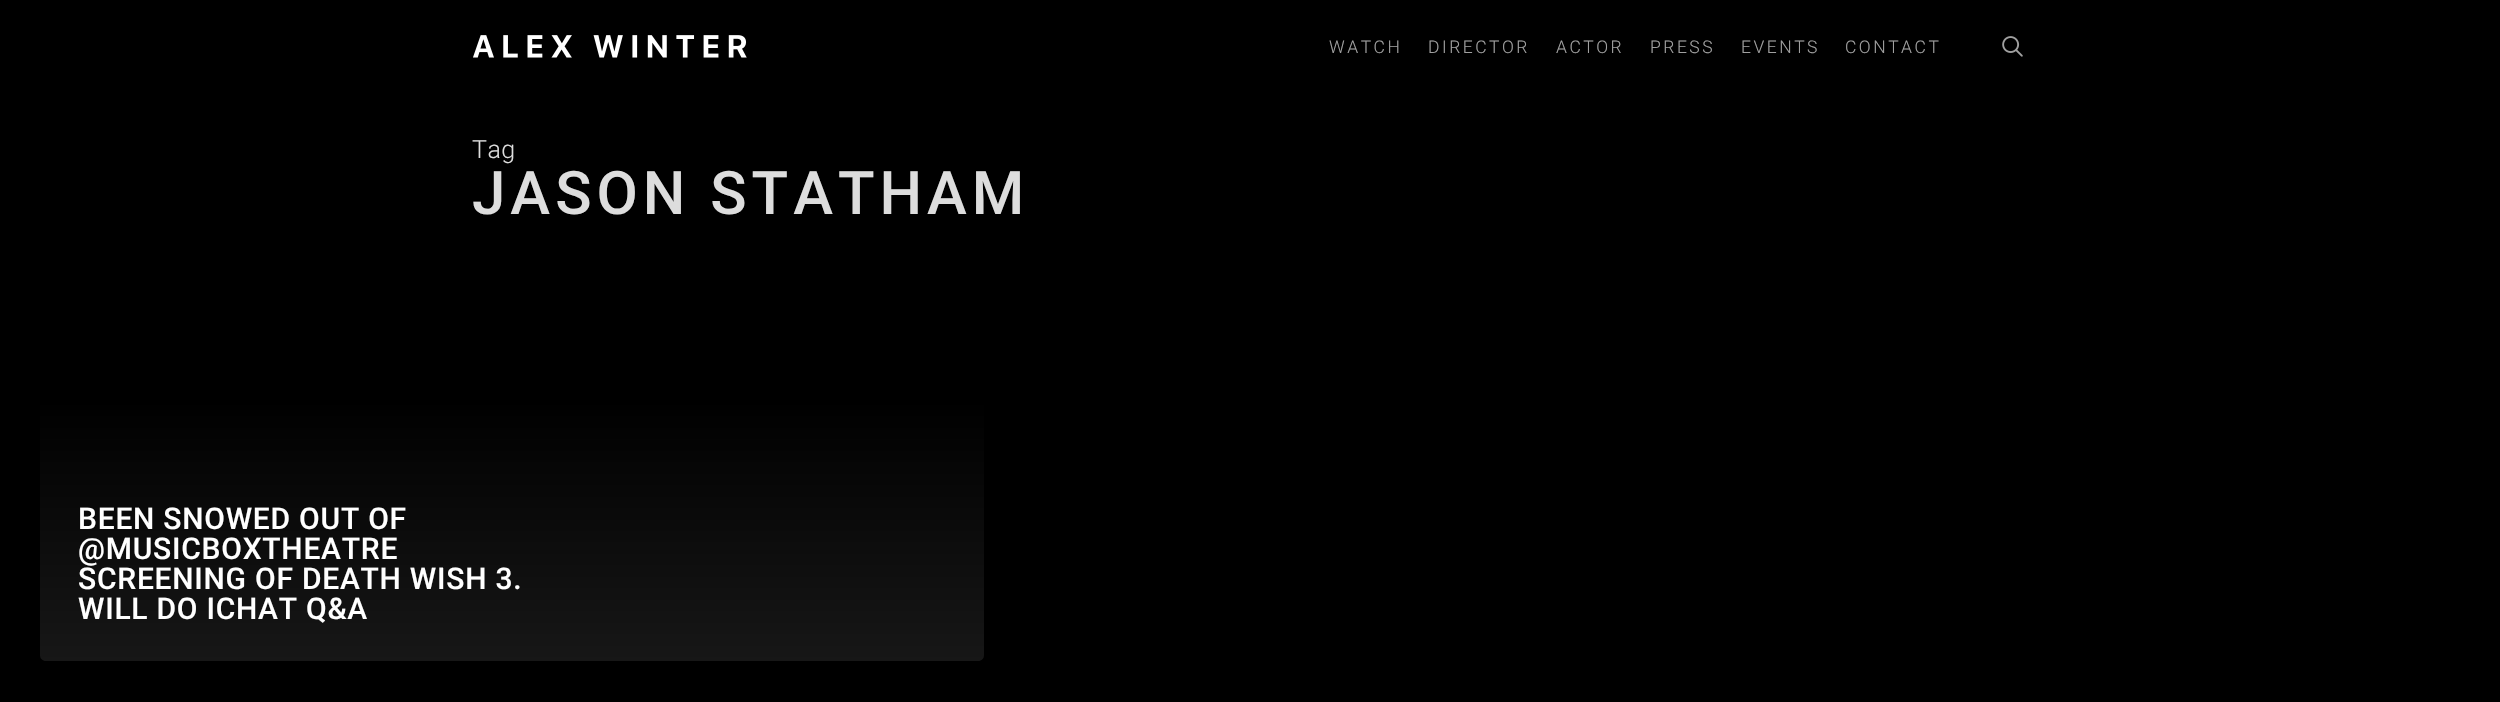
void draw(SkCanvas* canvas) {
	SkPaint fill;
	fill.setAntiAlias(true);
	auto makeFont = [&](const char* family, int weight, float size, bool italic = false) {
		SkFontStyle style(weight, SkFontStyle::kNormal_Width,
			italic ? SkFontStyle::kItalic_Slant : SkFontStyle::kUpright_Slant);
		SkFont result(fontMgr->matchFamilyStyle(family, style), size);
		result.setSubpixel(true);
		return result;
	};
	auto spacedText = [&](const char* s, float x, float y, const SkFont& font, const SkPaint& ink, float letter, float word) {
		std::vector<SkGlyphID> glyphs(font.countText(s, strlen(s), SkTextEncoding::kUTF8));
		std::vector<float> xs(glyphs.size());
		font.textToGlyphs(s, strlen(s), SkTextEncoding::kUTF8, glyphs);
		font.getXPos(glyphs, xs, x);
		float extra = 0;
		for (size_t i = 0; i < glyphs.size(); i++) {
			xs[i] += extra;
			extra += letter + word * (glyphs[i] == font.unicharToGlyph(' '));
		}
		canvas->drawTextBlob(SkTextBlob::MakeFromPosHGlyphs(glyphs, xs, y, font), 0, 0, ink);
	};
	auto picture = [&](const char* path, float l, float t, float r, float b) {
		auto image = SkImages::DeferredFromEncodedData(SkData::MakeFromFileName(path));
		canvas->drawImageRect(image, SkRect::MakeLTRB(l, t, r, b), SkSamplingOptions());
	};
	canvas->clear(0xFF000000);
	picture("image0.png", 473, 35, 747, 58);
	picture("image1.png", 2002, 36, 2023, 57);
	{
		const SkColor colors[] = {0xFF000000, 0xFF171717};
		const float stops[] = {0, 1};
		const SkPoint ends[] = {{514, 399}, {514, 663}};
		fill.setShader(SkGradientShader::MakeLinear(ends, colors, stops, 2, SkTileMode::kClamp));
		fill.setAlpha(255);
	}
	canvas->drawPath(SkPathBuilder().moveTo(40, 399).lineTo(984, 399).lineTo(984, 655).cubicTo(984, 658.5f, 981.5f, 661, 978, 661).lineTo(46, 661).cubicTo(42.5f, 661, 40, 658.5f, 40, 655).close().detach(), fill);
	auto font1 = makeFont("Roboto", 300, 17.5f);
	fill.setShader(nullptr);
	fill.setColor(0xFFA0A0A0);
	spacedText("WATCH", 1329, 53, font1, fill, 2.5f, 0);
	spacedText("DIRECTOR", 1428, 53, font1, fill, 2.5f, 0);
	spacedText("ACTOR", 1556, 53, font1, fill, 2.5f, 0);
	spacedText("PRESS", 1650, 53, font1, fill, 2.5f, 0);
	spacedText("EVENTS", 1741, 53, font1, fill, 2.5f, 0);
	spacedText("CONTACT", 1845, 53, font1, fill, 2.5f, 0);
	auto font2 = makeFont("Roboto", 300, 25);
	fill.setColor(0xFFDDDDDD);
	spacedText("Tag", 472, 158, font2, fill, 0.5f, 0);
	auto font3 = makeFont("Roboto", 500, 60);
	spacedText("JASON STATHAM", 472, 214, font3, fill, 5, 0);
	auto font4 = makeFont("Roboto", 500, 30);
	fill.setColor(0xFFFFFFFF);
	spacedText("BEEN SNOWED OUT OF", 78, 529, font4, fill, 0.75f, 0);
	spacedText("@MUSICBOXTHEATRE", 78, 559, font4, fill, 0.75f, 0);
	spacedText("SCREENING OF DEATH WISH 3.", 78, 589, font4, fill, 0.75f, 0);
	spacedText("WILL DO ICHAT Q&A", 78, 619, font4, fill, 0.75f, 0);
}
